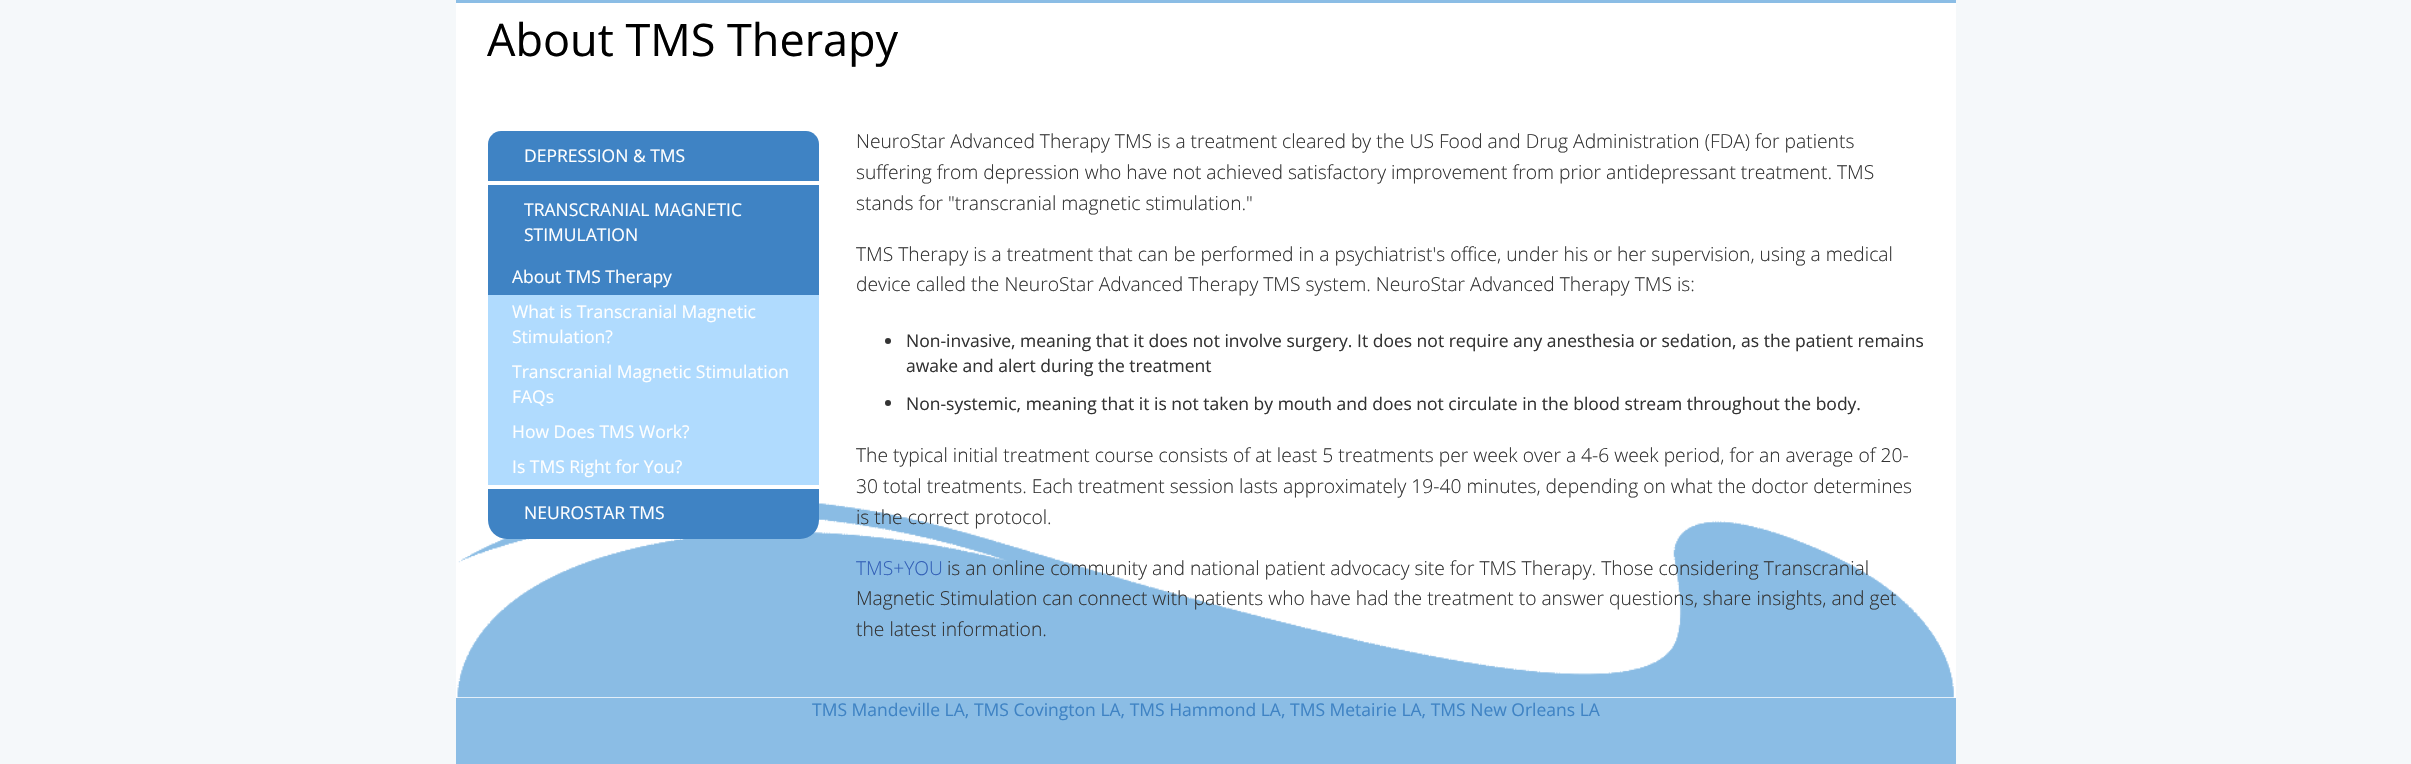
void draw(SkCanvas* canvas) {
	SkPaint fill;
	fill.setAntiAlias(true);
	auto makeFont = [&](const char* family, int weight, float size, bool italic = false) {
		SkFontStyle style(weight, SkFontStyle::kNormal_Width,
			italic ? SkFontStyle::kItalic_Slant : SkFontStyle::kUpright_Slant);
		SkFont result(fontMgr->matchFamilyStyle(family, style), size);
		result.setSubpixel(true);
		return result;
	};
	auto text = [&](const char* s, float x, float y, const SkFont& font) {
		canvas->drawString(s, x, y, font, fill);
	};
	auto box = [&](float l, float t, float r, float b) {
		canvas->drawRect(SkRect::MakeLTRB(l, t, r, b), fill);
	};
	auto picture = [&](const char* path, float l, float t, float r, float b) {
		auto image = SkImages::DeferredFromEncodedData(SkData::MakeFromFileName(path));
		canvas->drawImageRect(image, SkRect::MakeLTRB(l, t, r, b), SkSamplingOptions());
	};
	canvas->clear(0xFFF5F8FA);
	fill.setColor(0xFF8BBDE5);
	box(456, 0, 1956, 3);
	fill.setColor(0xFFFFFFFF);
	box(456, 3, 1956, 698);
	picture("image0.png", 457, 503, 1954, 698);
	fill.setColor(0xFF3F83C4);
	canvas->drawPath(SkPathBuilder().moveTo(501, 131).lineTo(806, 131).cubicTo(813, 131, 819, 137, 819, 144).lineTo(819, 181).lineTo(488, 181).lineTo(488, 144).cubicTo(488, 137, 494, 131, 501, 131).close().detach(), fill);
	box(488, 185, 819, 295);
	fill.setColor(0xFFB0DBFE);
	box(488, 295, 819, 485);
	fill.setColor(0xFF3F83C4);
	canvas->drawPath(SkPathBuilder().moveTo(488, 489).lineTo(819, 489).lineTo(819, 520).cubicTo(819, 530.5f, 810.5f, 539, 800, 539).lineTo(507, 539).cubicTo(496.5f, 539, 488, 530.5f, 488, 520).close().detach(), fill);
	fill.setColor(0xFF333333);
	canvas->drawCircle(888, 341, 3, fill);
	canvas->drawCircle(888, 403, 3, fill);
	fill.setColor(0xFF8BBDE5);
	box(456, 698, 1956, 764);
	auto font1 = makeFont("Open Sans", 400, 45);
	fill.setColor(0xFF000000);
	text("About TMS Therapy", 487, 56, font1);
	auto font2 = makeFont("Open Sans", 400, 17.5f);
	fill.setColor(0xFFFFFFFF);
	text("DEPRESSION & TMS", 524, 162, font2);
	text("TRANSCRANIAL MAGNETIC", 524, 216, font2);
	text("STIMULATION", 524, 241, font2);
	text("About TMS Therapy", 512, 283, font2);
	text("What is Transcranial Magnetic", 512, 318, font2);
	text("Stimulation?", 512, 343, font2);
	text("Transcranial Magnetic Stimulation", 512, 378, font2);
	text("FAQs", 512, 403, font2);
	text("How Does TMS Work?", 512, 438, font2);
	text("Is TMS Right for You?", 512, 473, font2);
	text("NEUROSTAR TMS", 524, 519, font2);
	auto font3 = makeFont("Open Sans", 300, 19.25f);
	fill.setColor(0xFF333333);
	text("NeuroStar Advanced Therapy TMS is a treatment cleared by the US Food and Drug Administration (FDA) for patients", 856, 148, font3);
	text("suffering from depression who have not achieved satisfactory improvement from prior antidepressant treatment. TMS", 856, 179, font3);
	text("stands for \"transcranial magnetic stimulation.\"", 856, 210, font3);
	text("TMS Therapy is a treatment that can be performed in a psychiatrist's office, under his or her supervision, using a medical", 856, 261, font3);
	text("device called the NeuroStar Advanced Therapy TMS system. NeuroStar Advanced Therapy TMS is:", 856, 291, font3);
	text("Non-invasive, meaning that it does not involve surgery. It does not require any anesthesia or sedation, as the patient remains", 906, 347, font2);
	text("awake and alert during the treatment", 906, 372, font2);
	text("Non-systemic, meaning that it is not taken by mouth and does not circulate in the blood stream throughout the body.", 906, 410, font2);
	text("The typical initial treatment course consists of at least 5 treatments per week over a 4-6 week period, for an average of 20-", 856, 462, font3);
	text("30 total treatments. Each treatment session lasts approximately 19-40 minutes, depending on what the doctor determines", 856, 493, font3);
	text("is the correct protocol.", 856, 524, font3);
	fill.setColor(0xFF3360B7);
	text("TMS+YOU", 856, 575, font3);
	fill.setColor(0xFF333333);
	text("is an online community and national patient advocacy site for TMS Therapy. Those considering Transcranial", 947, 575, font3);
	text("Magnetic Stimulation can connect with patients who have had the treatment to answer questions, share insights, and get", 856, 605, font3);
	text("the latest information.", 856, 636, font3);
	fill.setColor(0xFF3F83C4);
	text("TMS Mandeville LA, TMS Covington LA, TMS Hammond LA, TMS Metairie LA, TMS New Orleans LA", 812, 716, font2);
}
